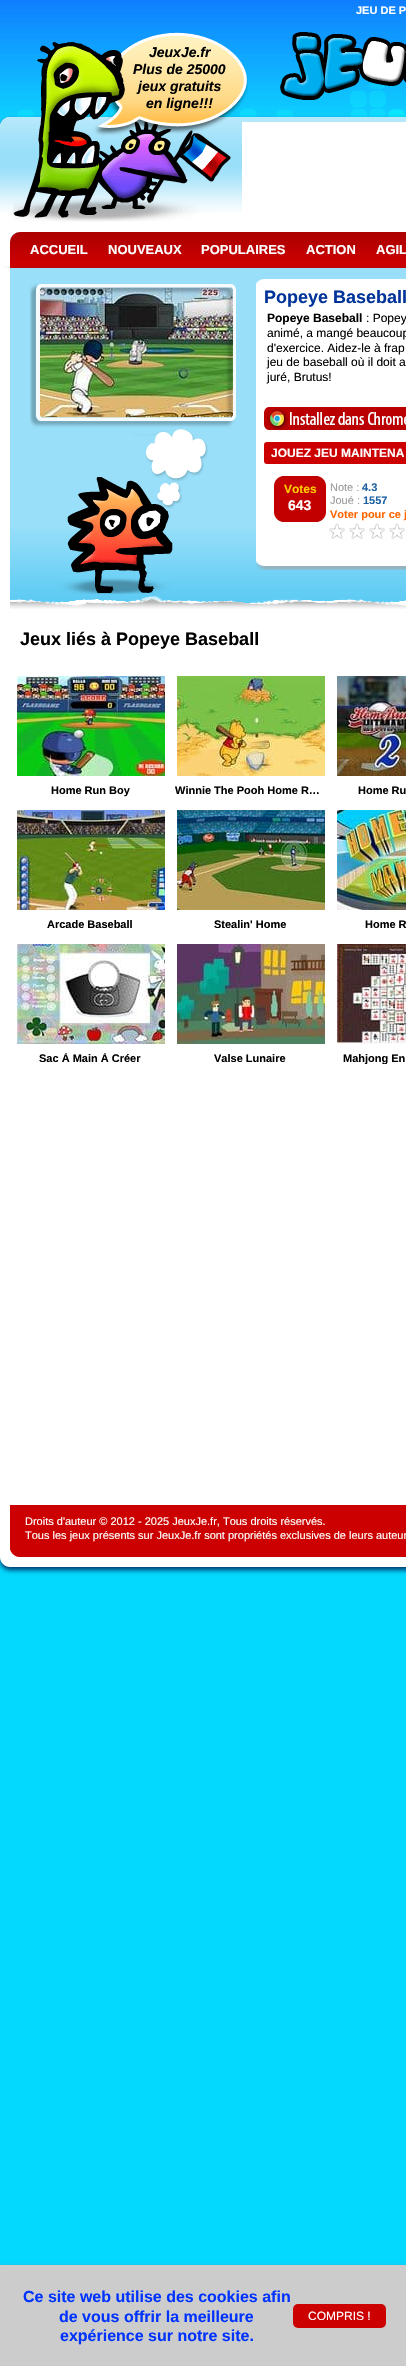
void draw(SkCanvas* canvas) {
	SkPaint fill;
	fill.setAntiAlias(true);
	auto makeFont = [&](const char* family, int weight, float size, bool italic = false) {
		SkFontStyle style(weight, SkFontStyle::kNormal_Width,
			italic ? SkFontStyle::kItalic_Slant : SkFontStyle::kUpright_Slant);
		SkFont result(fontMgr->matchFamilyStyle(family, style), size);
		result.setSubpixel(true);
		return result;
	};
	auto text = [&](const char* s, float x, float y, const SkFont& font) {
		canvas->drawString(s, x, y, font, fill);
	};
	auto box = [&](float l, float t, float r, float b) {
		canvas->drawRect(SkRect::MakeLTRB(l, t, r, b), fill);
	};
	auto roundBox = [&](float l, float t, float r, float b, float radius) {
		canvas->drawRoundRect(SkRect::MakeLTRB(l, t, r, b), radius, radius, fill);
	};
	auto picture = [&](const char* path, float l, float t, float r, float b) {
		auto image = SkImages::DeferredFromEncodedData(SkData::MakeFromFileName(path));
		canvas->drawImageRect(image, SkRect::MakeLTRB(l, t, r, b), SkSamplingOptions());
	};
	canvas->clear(0xFF03D8FE);
	picture("image0.png", 0, 0, 406, 127);
	fill.setColor(0xFF003366);
	fill.setMaskFilter(SkMaskFilter::MakeBlur(kNormal_SkBlurStyle, 2.5f));
	canvas->drawRoundRect(SkRect::MakeLTRB(0, 120, 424, 271), 10, 10, fill);
	fill.setMaskFilter(nullptr);
	fill.setColor(0xFFFFFFFF);
	canvas->drawPath(SkPathBuilder().moveTo(10, 117).lineTo(406, 117).cubicTo(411.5f, 117, 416, 121.5f, 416, 127).lineTo(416, 268).lineTo(0, 268).lineTo(0, 127).cubicTo(0, 121.5f, 4.5f, 117, 10, 117).close().detach(), fill);
	picture("image3.png", 0, 117, 406, 213);
	picture("image1.png", 13, 32, 248, 222);
	picture("image2.png", 280, 32, 406, 100);
	box(242, 122, 406, 213);
	fill.setColor(0xFF99DFF9);
	canvas->drawPath(SkPathBuilder().moveTo(20, 232).lineTo(406, 232).cubicTo(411.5f, 232, 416, 236.5f, 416, 242).lineTo(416, 268).lineTo(10, 268).lineTo(10, 242).cubicTo(10, 236.5f, 14.5f, 232, 20, 232).close().detach(), fill);
	picture("image4.png", 10, 232, 406, 268);
	fill.setColor(0xFF003366);
	fill.setMaskFilter(SkMaskFilter::MakeBlur(kNormal_SkBlurStyle, 2.5f));
	canvas->drawRoundRect(SkRect::MakeLTRB(0, 271, 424, 1570), 10, 10, fill);
	fill.setMaskFilter(nullptr);
	fill.setColor(0xFFFFFFFF);
	canvas->drawPath(SkPathBuilder().moveTo(0, 268).lineTo(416, 268).lineTo(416, 1557).cubicTo(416, 1562.5f, 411.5f, 1567, 406, 1567).lineTo(10, 1567).cubicTo(4.5f, 1567, 0, 1562.5f, 0, 1557).close().detach(), fill);
	fill.setColor(0xFF99DFF9);
	box(10, 268, 406, 529);
	picture("image5.png", 10, 529, 406, 609);
	picture("image7.png", 39, 287, 233, 421);
	picture("image6.png", 30, 279, 240, 594);
	picture("image8.png", 256, 279, 406, 570);
	picture("image9.png", 264, 407, 406, 431);
	fill.setColor(0xFFCC0000);
	roundBox(264, 442, 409, 464, 3);
	picture("image10.png", 274, 476, 326, 522);
	picture("image11.png", 329, 523, 405, 539);
	picture("image12.png", 17, 676, 165, 776);
	picture("image13.png", 177, 676, 325, 776);
	picture("image14.png", 337, 676, 406, 776);
	picture("image15.png", 17, 810, 165, 910);
	picture("image16.png", 177, 810, 325, 910);
	picture("image17.png", 337, 810, 406, 910);
	picture("image18.png", 17, 944, 165, 1044);
	picture("image19.png", 177, 944, 325, 1044);
	picture("image20.png", 337, 944, 406, 1044);
	canvas->drawPath(SkPathBuilder().moveTo(10, 1505).lineTo(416, 1505).lineTo(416, 1547).cubicTo(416, 1552.5f, 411.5f, 1557, 406, 1557).lineTo(20, 1557).cubicTo(14.5f, 1557, 10, 1552.5f, 10, 1547).close().detach(), fill);
	picture("image21.png", 10, 1547, 406, 1557);
	fill.setColor(0xFF6D828F);
	fill.setMaskFilter(SkMaskFilter::MakeBlur(kNormal_SkBlurStyle, 2));
	canvas->drawRect(SkRect::MakeLTRB(0, 2267, 406, 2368), fill);
	fill.setMaskFilter(nullptr);
	fill.setColor(0xFFCCCCCC);
	box(0, 2265, 406, 2366);
	picture("image22.png", 293, 2304, 386, 2328);
	auto font1 = makeFont("Liberation Sans", 700, 11);
	fill.setColor(0xFFFFFFFF);
	text("JEU DE P", 356, 14, font1);
	auto font2 = makeFont("Liberation Sans", 700, 14, true);
	fill.setColor(0xFF000000);
	text("JeuxJe.fr", 149, 57, font2);
	text("Plus de 25000", 133, 74, font2);
	text("jeux gratuits", 138, 91, font2);
	text("en ligne!!!", 146, 108, font2);
	auto font3 = makeFont("Liberation Sans", 700, 13);
	fill.setColor(0xFFFFFFFF);
	text("ACCUEIL", 30, 254, font3);
	text("NOUVEAUX", 108, 254, font3);
	text("POPULAIRES", 201, 254, font3);
	text("ACTION", 306, 254, font3);
	text("AGIL", 376, 254, font3);
	auto font4 = makeFont("Liberation Sans", 700, 18);
	fill.setColor(0xFF003399);
	text("Popeye Baseball", 264, 303, font4);
	auto font5 = makeFont("Liberation Sans", 700, 12);
	fill.setColor(0xFF000000);
	text("Popeye Baseball", 267, 322, font5);
	auto font6 = makeFont("Liberation Sans", 400, 12);
	text(": Popey", 366, 322, font6);
	text("animé, a mangé beaucoup", 267, 337, font6);
	text("d'exercice. Aidez-le à frap", 267, 352, font6);
	text("jeu de baseball où il doit a", 267, 366, font6);
	text("juré, Brutus!", 267, 381, font6);
	fill.setColor(0xFFFFFFFF);
	text("JOUEZ JEU MAINTENA", 271, 457, font5);
	fill.setColor(0xFFFFCC00);
	text("Votes", 284, 493, font5);
	auto font7 = makeFont("Liberation Sans", 700, 14);
	fill.setColor(0xFFFFFFFF);
	text("643", 288, 510, font7);
	auto font8 = makeFont("Liberation Sans", 400, 11);
	fill.setColor(0xFF999999);
	text("Note :", 330, 491, font8);
	fill.setColor(0xFF1D61A3);
	text("4.3", 362, 491, font1);
	fill.setColor(0xFF999999);
	text("Joué :", 330, 504, font8);
	fill.setColor(0xFF1D61A3);
	text("1557", 363, 504, font1);
	fill.setColor(0xFFFF6600);
	text("Voter pour ce j", 330, 518, font1);
	fill.setColor(0xFF000000);
	text("Jeux liés à Popeye Baseball", 20, 645, font4);
	text("Home Run Boy", 51, 794, font1);
	text("Winnie The Pooh Home R…", 175, 794, font1);
	text("Home Ru", 358, 794, font1);
	text("Arcade Baseball", 47, 928, font1);
	text("Stealin' Home", 214, 928, font1);
	text("Home R", 365, 928, font1);
	canvas->save();
	canvas->clipRect(SkRect::MakeLTRB(10, 1053, 165, 1064));
	text("Sac À Main À Créer", 39, 1062, font1);
	canvas->restore();
	text("Valse Lunaire", 214, 1062, font1);
	canvas->save();
	canvas->clipRect(SkRect::MakeLTRB(330, 1053, 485, 1064));
	text("Mahjong En", 343, 1062, font1);
	canvas->restore();
	fill.setColor(0xFFFFFFFF);
	text("Droits d'auteur © 2012 - 2025 JeuxJe.fr, Tous droits réservés.", 25, 1525, font8);
	text("Tous les jeux présents sur JeuxJe.fr sont propriétés exclusives de leurs auteur", 25, 1539, font8);
	auto font9 = makeFont("Liberation Sans", 700, 16);
	fill.setColor(0xFF0033FF);
	text("Ce site web utilise des cookies afin", 23, 2302, font9);
	text("de vous offrir la meilleure", 59, 2322, font9);
	text("expérience sur notre site.", 60, 2341, font9);
	fill.setColor(0xFFFFFFFF);
	text("COMPRIS !", 308, 2320, font6);
}
